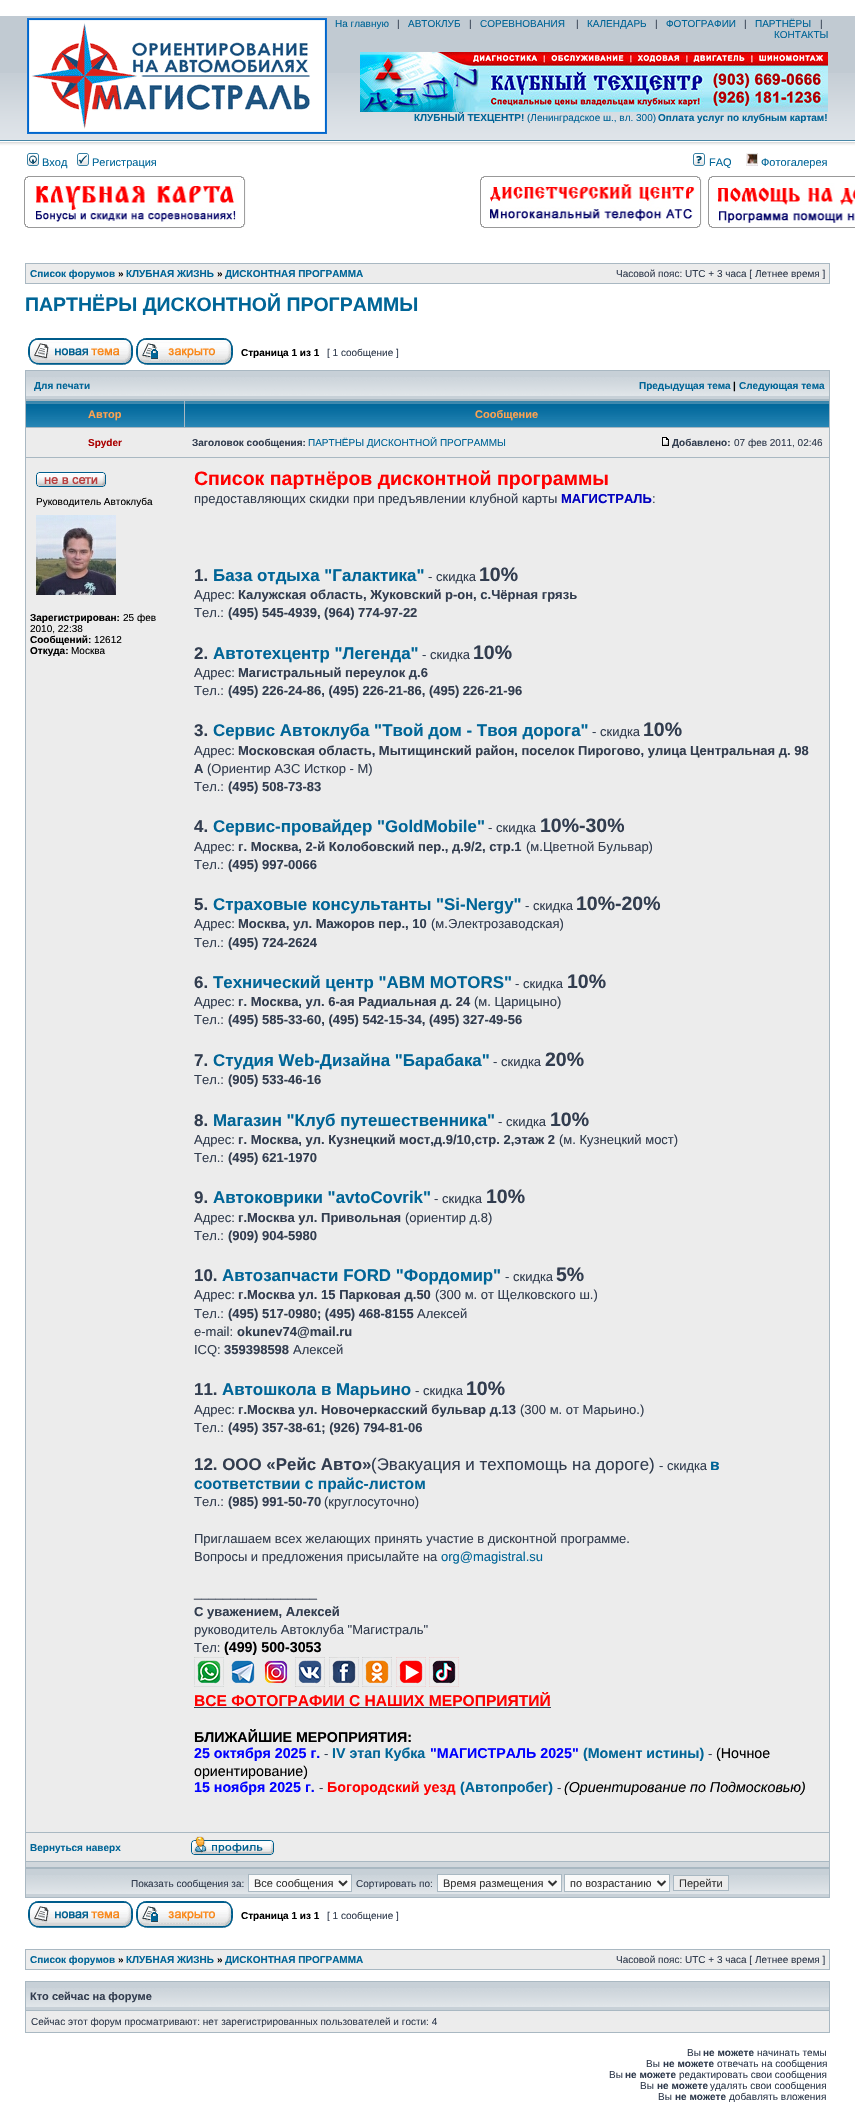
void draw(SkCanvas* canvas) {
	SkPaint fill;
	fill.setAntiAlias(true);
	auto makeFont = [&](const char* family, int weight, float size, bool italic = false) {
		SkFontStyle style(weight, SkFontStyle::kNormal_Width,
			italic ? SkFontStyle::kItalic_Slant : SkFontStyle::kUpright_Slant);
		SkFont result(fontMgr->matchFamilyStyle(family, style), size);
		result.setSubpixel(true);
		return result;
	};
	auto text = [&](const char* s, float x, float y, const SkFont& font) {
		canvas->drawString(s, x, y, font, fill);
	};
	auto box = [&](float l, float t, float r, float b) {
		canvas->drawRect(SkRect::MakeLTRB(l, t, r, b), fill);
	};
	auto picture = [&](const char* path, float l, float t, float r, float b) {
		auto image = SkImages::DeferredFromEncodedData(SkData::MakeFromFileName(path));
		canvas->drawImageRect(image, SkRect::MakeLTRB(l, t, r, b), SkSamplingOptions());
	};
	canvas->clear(0xFFFFFFFF);
	fill.setColor(0xFFC1CAD2);
	box(0, 16, 855, 73);
	picture("image0.png", 0, 73, 855, 151);
	picture("image1.png", 27, 18, 327, 134);
	picture("image2.png", 360, 52, 828, 112);
	picture("image3.png", 27, 153, 39, 166);
	picture("image4.png", 77, 153, 89, 166);
	picture("image5.png", 693, 153, 705, 166);
	picture("image6.png", 746, 153, 758, 166);
	picture("image7.png", 24, 176, 246, 228);
	picture("image8.png", 480, 176, 702, 228);
	picture("image9.png", 708, 176, 855, 228);
	fill.setColor(0xFFA9B8C2);
	box(25, 263, 830, 284);
	fill.setColor(0xFFECECEC);
	box(26, 264, 829, 283);
	picture("image10.png", 28, 338, 133, 365);
	picture("image11.png", 136, 338, 233, 365);
	fill.setColor(0xFFA9B8C2);
	box(25, 370, 830, 1898);
	fill.setColor(0xFFC7D0D7);
	box(26, 371, 829, 399);
	picture("image12.png", 26, 377, 829, 396);
	picture("image13.png", 26, 401, 184, 427);
	picture("image14.png", 185, 401, 829, 427);
	fill.setColor(0xFFECECEC);
	box(26, 428, 829, 457);
	picture("image15.png", 662, 437, 669, 446);
	box(26, 458, 829, 1832);
	picture("image16.png", 36, 472, 106, 487);
	picture("image17.png", 36, 515, 116, 595);
	picture("image18.png", 194, 1657, 224, 1687);
	picture("image19.png", 228, 1657, 258, 1687);
	picture("image20.png", 261, 1659, 291, 1687);
	picture("image21.png", 295, 1657, 325, 1687);
	picture("image22.png", 329, 1657, 359, 1687);
	picture("image23.png", 362, 1657, 392, 1687);
	picture("image24.png", 396, 1657, 426, 1687);
	picture("image25.png", 429, 1657, 459, 1687);
	fill.setColor(0xFF323D4F);
	box(194, 1707, 551, 1708);
	fill.setColor(0xFFECECEC);
	box(26, 1833, 829, 1861);
	picture("image26.png", 191, 1836, 274, 1855);
	fill.setColor(0xFFD1D7DC);
	box(26, 1862, 829, 1867);
	fill.setColor(0xFFC7D0D7);
	box(26, 1869, 829, 1897);
	picture("image12.png", 26, 1875, 829, 1894);
	fill.setColor(0xFFFAFAFA);
	canvas->drawRect(SkRect::MakeLTRB(248.5f, 1874.5f, 351.5f, 1891.5f), fill);
	fill.setStyle(SkPaint::kStroke_Style);
	fill.setStrokeWidth(1);
	fill.setColor(0xFFA9B8C2);
	canvas->drawRect(SkRect::MakeLTRB(248.5f, 1874.5f, 351.5f, 1891.5f), fill);
	fill.setStrokeWidth(2);
	fill.setColor(0xFF333333);
	canvas->drawPath(SkPathBuilder().moveTo(339, 1881).lineTo(343, 1885).lineTo(347, 1881).detach(), fill);
	fill.setStyle(SkPaint::kFill_Style);
	fill.setColor(0xFFFAFAFA);
	canvas->drawRect(SkRect::MakeLTRB(437.5f, 1874.5f, 561.5f, 1891.5f), fill);
	fill.setStyle(SkPaint::kStroke_Style);
	fill.setStrokeWidth(1);
	fill.setColor(0xFFA9B8C2);
	canvas->drawRect(SkRect::MakeLTRB(437.5f, 1874.5f, 561.5f, 1891.5f), fill);
	fill.setStrokeWidth(2);
	fill.setColor(0xFF333333);
	canvas->drawPath(SkPathBuilder().moveTo(548.5f, 1881).lineTo(552.5f, 1885).lineTo(556.5f, 1881).detach(), fill);
	fill.setStyle(SkPaint::kFill_Style);
	fill.setColor(0xFFFAFAFA);
	canvas->drawRect(SkRect::MakeLTRB(564.5f, 1874.5f, 669.5f, 1891.5f), fill);
	fill.setStyle(SkPaint::kStroke_Style);
	fill.setStrokeWidth(1);
	fill.setColor(0xFFA9B8C2);
	canvas->drawRect(SkRect::MakeLTRB(564.5f, 1874.5f, 669.5f, 1891.5f), fill);
	fill.setStrokeWidth(2);
	fill.setColor(0xFF333333);
	canvas->drawPath(SkPathBuilder().moveTo(657.5f, 1881).lineTo(661.5f, 1885).lineTo(665.5f, 1881).detach(), fill);
	fill.setStyle(SkPaint::kFill_Style);
	fill.setColor(0xFFECECEC);
	canvas->drawRect(SkRect::MakeLTRB(673.5f, 1875.5f, 728.5f, 1890.5f), fill);
	fill.setStyle(SkPaint::kStroke_Style);
	fill.setStrokeWidth(1);
	fill.setColor(0xFFA9B8C2);
	canvas->drawRect(SkRect::MakeLTRB(673.5f, 1875.5f, 728.5f, 1890.5f), fill);
	picture("image10.png", 28, 1901, 133, 1928);
	picture("image11.png", 136, 1901, 233, 1928);
	fill.setStyle(SkPaint::kFill_Style);
	box(25, 1949, 830, 1970);
	fill.setColor(0xFFECECEC);
	box(26, 1950, 829, 1969);
	fill.setColor(0xFFA9B8C2);
	box(25, 1981, 830, 2033);
	fill.setColor(0xFFC7D0D7);
	box(26, 1982, 829, 2010);
	picture("image12.png", 26, 1988, 829, 2007);
	fill.setColor(0xFFECECEC);
	box(26, 2011, 829, 2032);
	auto font1 = makeFont("Liberation Sans", 400, 10);
	fill.setColor(0xFF006597);
	text("На главную", 335, 27, font1);
	fill.setColor(0xFF323D4F);
	text("|", 397, 27, font1);
	fill.setColor(0xFF006597);
	text("АВТОКЛУБ", 408, 27, font1);
	fill.setColor(0xFF323D4F);
	text("|", 469, 27, font1);
	fill.setColor(0xFF006597);
	text("СОРЕВНОВАНИЯ", 480, 27, font1);
	fill.setColor(0xFF323D4F);
	text("|", 576, 27, font1);
	fill.setColor(0xFF006597);
	text("КАЛЕНДАРЬ", 587, 27, font1);
	fill.setColor(0xFF323D4F);
	text("|", 655, 27, font1);
	fill.setColor(0xFF006597);
	text("ФОТОГРАФИИ", 666, 27, font1);
	fill.setColor(0xFF323D4F);
	text("|", 744, 27, font1);
	fill.setColor(0xFF006597);
	text("ПАРТНЁРЫ", 755, 27, font1);
	fill.setColor(0xFF323D4F);
	text("|", 820, 27, font1);
	fill.setColor(0xFF006597);
	text("КОНТАКТЫ", 774, 38, font1);
	auto font2 = makeFont("Liberation Sans", 700, 10);
	text("КЛУБНЫЙ ТЕХЦЕНТР!", 414, 121, font2);
	text("(Ленинградское ш., вл. 300)", 527, 121, font1);
	text("Оплата услуг по клубным картам!", 658, 121, font2);
	auto font3 = makeFont("Liberation Sans", 400, 11);
	text("Вход", 42, 166, font3);
	text("Регистрация", 92, 166, font3);
	text("FAQ", 709, 166, font3);
	text("Фотогалерея", 761, 166, font3);
	text("Список форумов", 30, 277, font2);
	fill.setColor(0xFF000000);
	text("»", 118, 277, font2);
	fill.setColor(0xFF006597);
	text("КЛУБНАЯ ЖИЗНЬ", 126, 277, font2);
	fill.setColor(0xFF000000);
	text("»", 217, 277, font2);
	fill.setColor(0xFF006597);
	text("ДИСКОНТНАЯ ПРОГРАММА", 225, 277, font2);
	fill.setColor(0xFF323D4F);
	text("Часовой пояс: UTC + 3 часа [ Летнее время ]", 616, 277, font1);
	auto font4 = makeFont("Liberation Sans", 700, 19.5f);
	fill.setColor(0xFF006597);
	text("ПАРТНЁРЫ ДИСКОНТНОЙ ПРОГРАММЫ", 25, 311, font4);
	fill.setColor(0xFF000000);
	text("Страница 1 из 1", 241, 356, font2);
	fill.setColor(0xFF323D4F);
	text("[ 1 сообщение ]", 327, 356, font1);
	fill.setColor(0xFF006597);
	text("Для печати", 34, 389, font2);
	text("Предыдущая тема", 639, 389, font2);
	fill.setColor(0xFF000000);
	text("|", 733, 389, font2);
	fill.setColor(0xFF006597);
	text("Следующая тема", 739, 389, font2);
	auto font5 = makeFont("Liberation Sans", 700, 11);
	fill.setColor(0xFFFFA34F);
	text("Автор", 88, 418, font5);
	text("Сообщение", 475, 418, font5);
	fill.setColor(0xFFAA0000);
	text("Spyder", 88, 446, font2);
	fill.setColor(0xFF323D4F);
	text("Заголовок сообщения:", 192, 446, font2);
	fill.setColor(0xFF006597);
	text("ПАРТНЁРЫ ДИСКОНТНОЙ ПРОГРАММЫ", 308, 446, font1);
	fill.setColor(0xFF323D4F);
	text("Добавлено:", 672, 446, font2);
	text("07 фев 2011, 02:46", 734, 446, font1);
	fill.setColor(0xFF000000);
	text("Руководитель Автоклуба", 36, 505, font1);
	text("Зарегистрирован:", 30, 621, font2);
	text("25 фев", 123, 621, font1);
	text("2010, 22:38", 30, 632, font1);
	text("Сообщений:", 30, 643, font2);
	text("12612", 94, 643, font1);
	text("Откуда:", 30, 654, font2);
	text("Москва", 71, 654, font1);
	fill.setColor(0xFFFF0000);
	text("Список партнёров дисконтной программы", 194, 485, font4);
	auto font6 = makeFont("Liberation Sans", 400, 13);
	fill.setColor(0xFF323D4F);
	text("предоставляющих скидки при предъявлении клубной карты", 194, 503, font6);
	auto font7 = makeFont("Liberation Sans", 700, 13);
	fill.setColor(0xFF0000BF);
	text("МАГИСТРАЛЬ", 561, 503, font7);
	fill.setColor(0xFF323D4F);
	text(":", 652, 503, font6);
	auto font8 = makeFont("Liberation Sans", 700, 16.9f);
	text("1.", 194, 581, font8);
	fill.setColor(0xFF006597);
	text("База отдыха \"Галактика\"", 213, 581, font8);
	fill.setColor(0xFF323D4F);
	text("- скидка", 428, 581, font6);
	text("10%", 479, 581, font4);
	text("Адрес:", 194, 599, font6);
	text("Калужская область, Жуковский р-он, с.Чёрная грязь", 238, 599, font7);
	text("Тел.:", 194, 617, font6);
	text("(495) 545-4939, (964) 774-97-22", 228, 617, font7);
	text("2.", 194, 659, font8);
	fill.setColor(0xFF006597);
	text("Автотехцентр \"Легенда\"", 213, 659, font8);
	fill.setColor(0xFF323D4F);
	text("- скидка", 422, 659, font6);
	text("10%", 473, 659, font4);
	text("Адрес:", 194, 677, font6);
	text("Магистральный переулок д.6", 238, 677, font7);
	text("Тел.:", 194, 695, font6);
	text("(495) 226-24-86, (495) 226-21-86, (495) 226-21-96", 228, 695, font7);
	text("3.", 194, 736, font8);
	fill.setColor(0xFF006597);
	text("Сервис Автоклуба \"Твой дом - Твоя дорога\"", 213, 736, font8);
	fill.setColor(0xFF323D4F);
	text("- скидка", 592, 736, font6);
	text("10%", 643, 736, font4);
	text("Адрес:", 194, 755, font6);
	text("Московская область, Мытищинский район, поселок Пирогово, улица Центральная д. 98", 238, 755, font7);
	text("А", 194, 773, font7);
	text("(Ориентир АЗС Исткор - М)", 207, 773, font6);
	text("Тел.:", 194, 791, font6);
	text("(495) 508-73-83", 228, 791, font7);
	text("4.", 194, 832, font8);
	fill.setColor(0xFF006597);
	text("Сервис-провайдер \"GoldMobile\"", 213, 832, font8);
	fill.setColor(0xFF323D4F);
	text("- скидка", 488, 832, font6);
	text("10%-30%", 540, 832, font4);
	text("Адрес:", 194, 851, font6);
	text("г. Москва, 2-й Колобовский пер., д.9/2, стр.1", 238, 851, font7);
	text("(м.Цветной Бульвар)", 526, 851, font6);
	text("Тел.:", 194, 869, font6);
	text("(495) 997-0066", 228, 869, font7);
	text("5.", 194, 910, font8);
	fill.setColor(0xFF006597);
	text("Страховые консультанты \"Si-Nergy\"", 213, 910, font8);
	fill.setColor(0xFF323D4F);
	text("- скидка", 525, 910, font6);
	text("10%-20%", 576, 910, font4);
	text("Адрес:", 194, 928, font6);
	text("Москва, ул. Мажоров пер., 10", 238, 928, font7);
	text("(м.Электрозаводская)", 431, 928, font6);
	text("Тел.:", 194, 947, font6);
	text("(495) 724-2624", 228, 947, font7);
	text("6.", 194, 988, font8);
	fill.setColor(0xFF006597);
	text("Технический центр \"ABM MOTORS\"", 213, 988, font8);
	fill.setColor(0xFF323D4F);
	text("- скидка", 515, 988, font6);
	text("10%", 567, 988, font4);
	text("Адрес:", 194, 1006, font6);
	text("г. Москва, ул. 6-ая Радиальная д. 24", 238, 1006, font7);
	text("(м. Царицыно)", 474, 1006, font6);
	text("Тел.:", 194, 1024, font6);
	text("(495) 585-33-60, (495) 542-15-34, (495) 327-49-56", 228, 1024, font7);
	text("7.", 194, 1066, font8);
	fill.setColor(0xFF006597);
	text("Студия Web-Дизайна \"Барабака\"", 213, 1066, font8);
	fill.setColor(0xFF323D4F);
	text("- скидка", 493, 1066, font6);
	text("20%", 545, 1066, font4);
	text("Тел.:", 194, 1084, font6);
	text("(905) 533-46-16", 228, 1084, font7);
	text("8.", 194, 1126, font8);
	fill.setColor(0xFF006597);
	text("Магазин \"Клуб путешественника\"", 213, 1126, font8);
	fill.setColor(0xFF323D4F);
	text("- скидка", 498, 1126, font6);
	text("10%", 550, 1126, font4);
	text("Адрес:", 194, 1144, font6);
	text("г. Москва, ул. Кузнецкий мост,д.9/10,стр. 2,этаж 2", 238, 1144, font7);
	text("(м. Кузнецкий мост)", 559, 1144, font6);
	text("Тел.:", 194, 1162, font6);
	text("(495) 621-1970", 228, 1162, font7);
	text("9.", 194, 1203, font8);
	fill.setColor(0xFF006597);
	text("Автоковрики \"avtoCovrik\"", 213, 1203, font8);
	fill.setColor(0xFF323D4F);
	text("- скидка", 434, 1203, font6);
	text("10%", 486, 1203, font4);
	text("Адрес:", 194, 1222, font6);
	text("г.Москва ул. Привольная", 238, 1222, font7);
	text("(ориентир д.8)", 405, 1222, font6);
	text("Тел.:", 194, 1240, font6);
	text("(909) 904-5980", 228, 1240, font7);
	text("10.", 194, 1281, font8);
	fill.setColor(0xFF006597);
	text("Автозапчасти FORD \"Фордомир\"", 222, 1281, font8);
	fill.setColor(0xFF323D4F);
	text("- скидка", 505, 1281, font6);
	text("5%", 556, 1281, font4);
	text("Адрес:", 194, 1299, font6);
	text("г.Москва ул. 15 Парковая д.50", 238, 1299, font7);
	text("(300 м. от Щелковского ш.)", 435, 1299, font6);
	text("Тел.:", 194, 1318, font6);
	text("(495) 517-0980; (495) 468-8155", 228, 1318, font7);
	text("Алексей", 417, 1318, font6);
	text("e-mail:", 194, 1336, font6);
	text("okunev74@mail.ru", 237, 1336, font7);
	text("ICQ:", 194, 1354, font6);
	text("359398598", 224, 1354, font7);
	text("Алексей", 293, 1354, font6);
	text("11.", 194, 1395, font8);
	fill.setColor(0xFF006597);
	text("Автошкола в Марьино", 222, 1395, font8);
	fill.setColor(0xFF323D4F);
	text("- скидка", 415, 1395, font6);
	text("10%", 466, 1395, font4);
	text("Адрес:", 194, 1414, font6);
	text("г.Москва ул. Новочеркасский бульвар д.13", 238, 1414, font7);
	text("(300 м. от Марьино.)", 520, 1414, font6);
	text("Тел.:", 194, 1432, font6);
	text("(495) 357-38-61; (926) 794-81-06", 228, 1432, font7);
	text("12. ООО «Рейс Авто»", 194, 1470, font8);
	auto font9 = makeFont("Liberation Sans", 400, 16.9f);
	text("(Эвакуация и техпомощь на дороге)", 371, 1470, font9);
	text("- скидка", 659, 1470, font6);
	auto font10 = makeFont("Liberation Sans", 700, 15.6f);
	fill.setColor(0xFF006597);
	text("в", 710, 1470, font10);
	text("соответствии с прайс-листом", 194, 1489, font10);
	fill.setColor(0xFF323D4F);
	text("Тел.:", 194, 1506, font6);
	text("(985) 991-50-70", 228, 1506, font7);
	text("(круглосуточно)", 324, 1506, font6);
	text("Приглашаем всех желающих принять участие в дисконтной программе.", 194, 1543, font6);
	text("Вопросы и предложения присылайте на", 194, 1561, font6);
	fill.setColor(0xFF006597);
	text("org@magistral.su", 441, 1561, font6);
	fill.setColor(0xFF323D4F);
	text("_________________", 194, 1597, font6);
	text("С уважением, Алексей", 194, 1616, font7);
	text("руководитель Автоклуба \"Магистраль\"", 194, 1634, font6);
	text("Тел:", 194, 1652, font6);
	auto font11 = makeFont("Liberation Sans", 700, 14.25f);
	fill.setColor(0xFF000000);
	text("(499) 500-3053", 224, 1652, font11);
	fill.setColor(0xFFFF0000);
	text("ВСЕ ФОТОГРАФИИ С НАШИХ МЕРОПРИЯТИЙ", 194, 1706, font10);
	fill.setColor(0xFF000000);
	text("БЛИЖАЙШИЕ МЕРОПРИЯТИЯ:", 194, 1742, font11);
	fill.setColor(0xFF0000FF);
	text("25 октября 2025 г.", 194, 1758, font11);
	fill.setColor(0xFF323D4F);
	text("-", 324, 1758, font6);
	fill.setColor(0xFF006597);
	text("IV этап Кубка", 332, 1758, font11);
	fill.setColor(0xFF0000FF);
	text("\"МАГИСТРАЛЬ 2025\"", 430, 1758, font11);
	fill.setColor(0xFF006597);
	text("(Момент истины)", 583, 1758, font11);
	fill.setColor(0xFF323D4F);
	text("-", 708, 1758, font6);
	auto font12 = makeFont("Liberation Sans", 400, 14.25f);
	fill.setColor(0xFF000000);
	text("(Ночное", 716, 1758, font12);
	text("ориентирование)", 194, 1776, font12);
	fill.setColor(0xFF0000FF);
	text("15 ноября 2025 г.", 194, 1792, font11);
	fill.setColor(0xFF323D4F);
	text("-", 319, 1792, font6);
	fill.setColor(0xFFFF0000);
	text("Богородский уезд", 327, 1792, font11);
	fill.setColor(0xFF006597);
	text("(Автопробег)", 460, 1792, font11);
	fill.setColor(0xFF323D4F);
	text("-", 557, 1792, font6);
	auto font13 = makeFont("Liberation Sans", 400, 14.25f, true);
	fill.setColor(0xFF000000);
	text("(Ориентирование по Подмосковью)", 564, 1792, font13);
	fill.setColor(0xFF006597);
	text("Вернуться наверх", 30, 1851, font2);
	fill.setColor(0xFF323D4F);
	text("Показать сообщения за:", 131, 1887, font1);
	fill.setColor(0xFF333333);
	text("Все сообщения", 254, 1887, font3);
	fill.setColor(0xFF323D4F);
	text("Сортировать по:", 356, 1887, font1);
	fill.setColor(0xFF333333);
	text("Время размещения", 443, 1887, font3);
	text("по возрастанию", 570, 1887, font3);
	text("Перейти", 679, 1887, font3);
	fill.setColor(0xFF000000);
	text("Страница 1 из 1", 241, 1919, font2);
	fill.setColor(0xFF323D4F);
	text("[ 1 сообщение ]", 327, 1919, font1);
	fill.setColor(0xFF006597);
	text("Список форумов", 30, 1963, font2);
	fill.setColor(0xFF000000);
	text("»", 118, 1963, font2);
	fill.setColor(0xFF006597);
	text("КЛУБНАЯ ЖИЗНЬ", 126, 1963, font2);
	fill.setColor(0xFF000000);
	text("»", 217, 1963, font2);
	fill.setColor(0xFF006597);
	text("ДИСКОНТНАЯ ПРОГРАММА", 225, 1963, font2);
	fill.setColor(0xFF323D4F);
	text("Часовой пояс: UTC + 3 часа [ Летнее время ]", 616, 1963, font1);
	text("Кто сейчас на форуме", 30, 2000, font5);
	text("Сейчас этот форум просматривают: нет зарегистрированных пользователей и гости: 4", 31, 2025, font1);
	text("Вы", 687, 2056, font1);
	text("не можете", 703, 2056, font2);
	text("начинать темы", 757, 2056, font1);
	text("Вы", 646, 2067, font1);
	text("не можете", 663, 2067, font2);
	text("отвечать на сообщения", 717, 2067, font1);
	text("Вы", 609, 2078, font1);
	text("не можете", 625, 2078, font2);
	text("редактировать свои сообщения", 679, 2078, font1);
	text("Вы", 640, 2089, font1);
	text("не можете", 657, 2089, font2);
	text("удалять свои сообщения", 710, 2089, font1);
	text("Вы", 658, 2100, font1);
	text("не можете", 675, 2100, font2);
	text("добавлять вложения", 729, 2100, font1);
}
